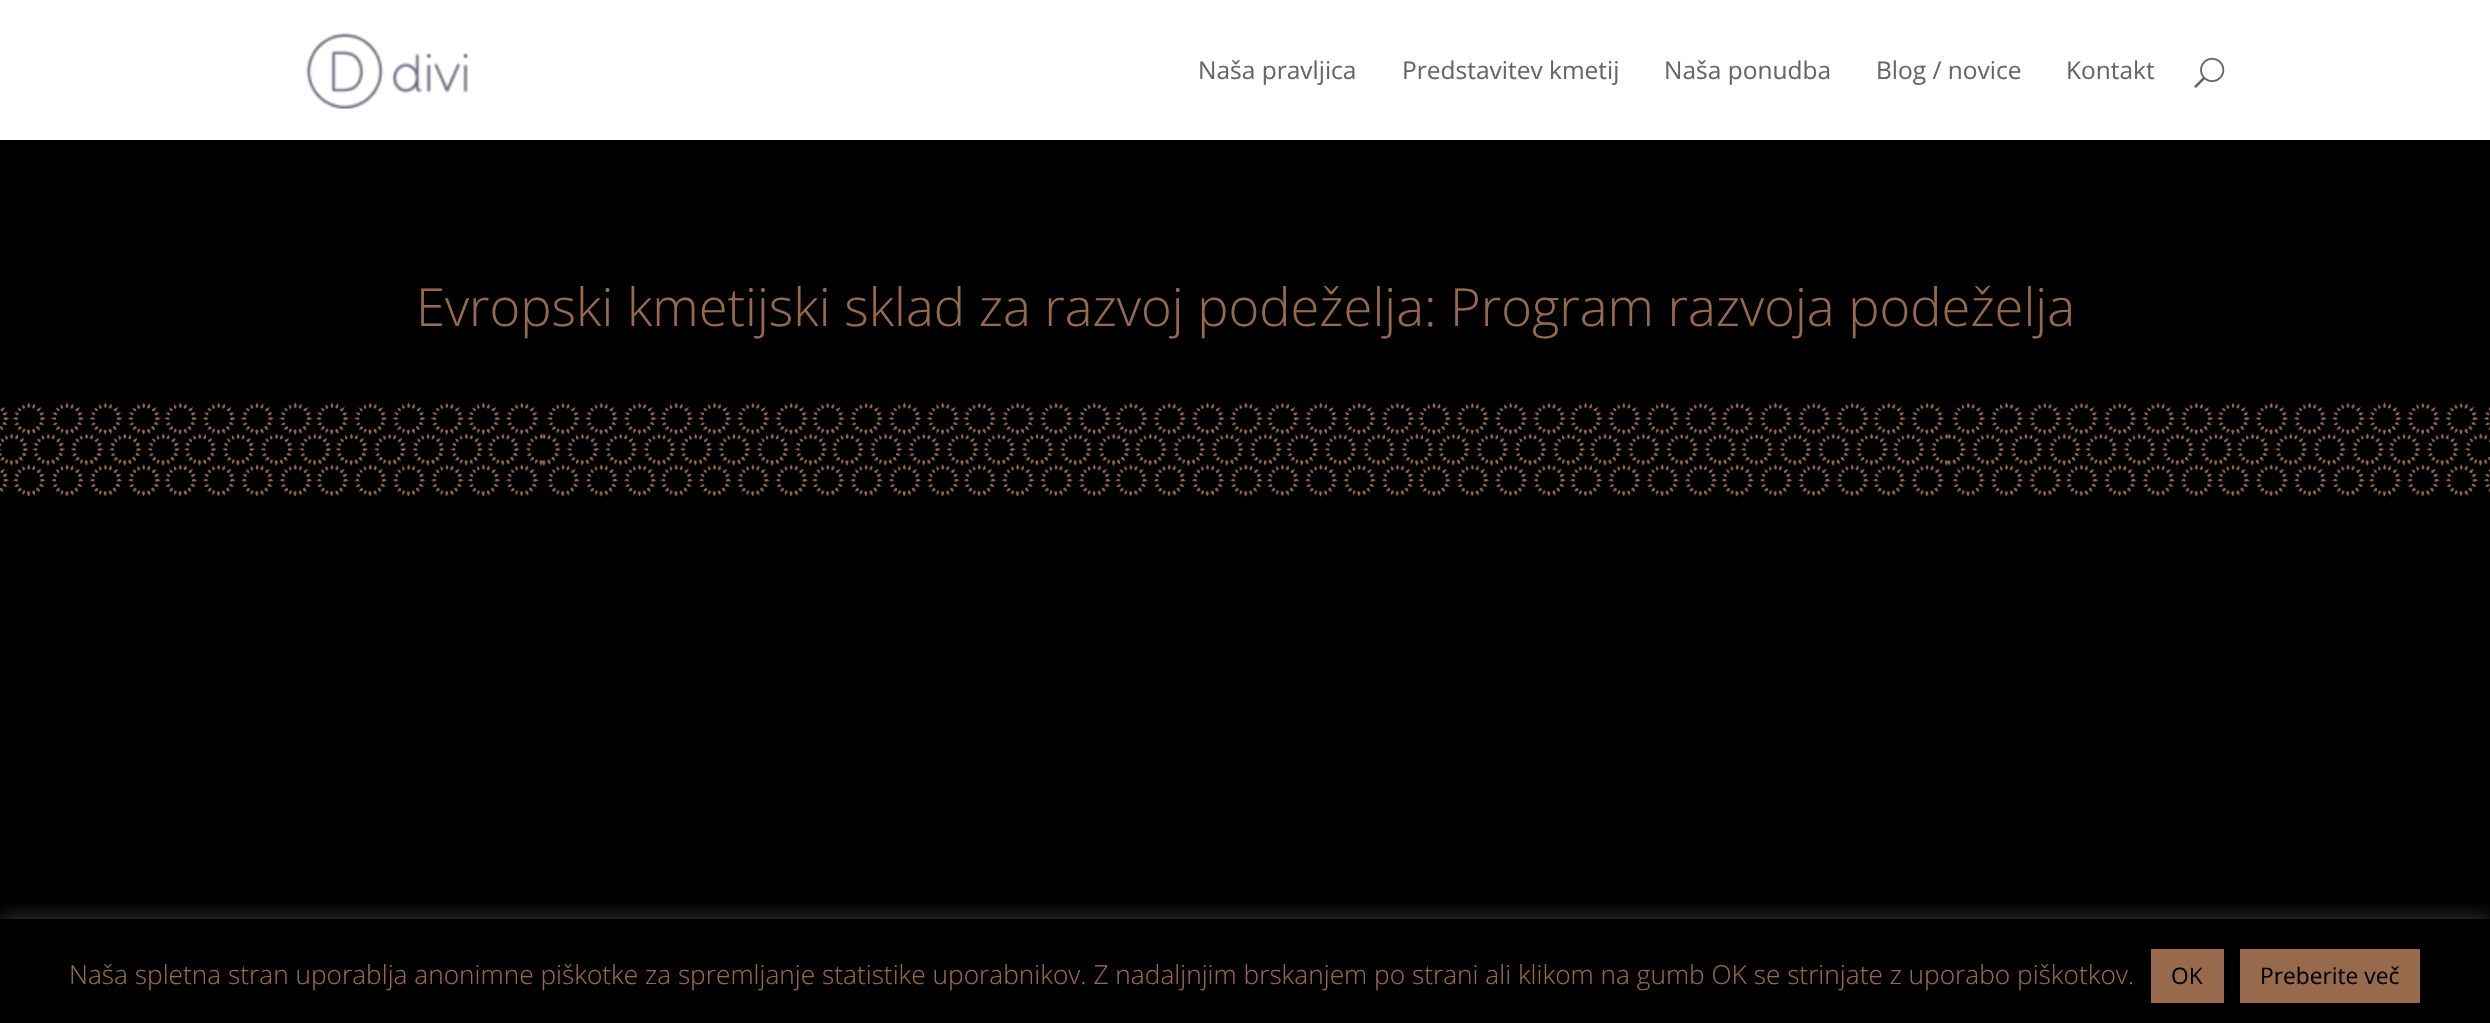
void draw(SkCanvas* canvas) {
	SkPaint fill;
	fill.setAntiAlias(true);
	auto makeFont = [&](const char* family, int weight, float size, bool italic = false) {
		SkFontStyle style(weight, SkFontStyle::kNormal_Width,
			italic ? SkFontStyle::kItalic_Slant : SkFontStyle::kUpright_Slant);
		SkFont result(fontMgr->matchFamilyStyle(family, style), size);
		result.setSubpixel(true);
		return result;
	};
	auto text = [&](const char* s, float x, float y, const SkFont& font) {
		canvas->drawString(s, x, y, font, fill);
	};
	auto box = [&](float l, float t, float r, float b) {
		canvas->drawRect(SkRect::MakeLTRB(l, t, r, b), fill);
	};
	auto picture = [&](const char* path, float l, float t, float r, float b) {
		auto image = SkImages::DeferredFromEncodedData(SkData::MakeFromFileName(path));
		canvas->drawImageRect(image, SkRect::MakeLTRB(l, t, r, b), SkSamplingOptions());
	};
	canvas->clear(0xFF000000);
	fill.setColor(0xFFFFFFFF);
	box(0, 0, 2490, 140);
	picture("image0.png", 306, 32, 469, 109);
	picture("image1.png", 2194, 57, 2225, 88);
	picture("image2.png", 0, 402, 2490, 497);
	canvas->save();
	canvas->clipRect(SkRect::MakeLTRB(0, 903, 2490, 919));
	fill.setColor(0x4DACABAB);
	fill.setMaskFilter(SkMaskFilter::MakeBlur(kNormal_SkBlurStyle, 9));
	canvas->drawRect(SkRect::MakeLTRB(0, 917, 2490, 1022), fill);
	fill.setMaskFilter(nullptr);
	canvas->restore();
	fill.setColor(0xFF986A4C);
	box(2151, 949, 2224, 1003);
	box(2240, 949, 2420, 1003);
	auto font1 = makeFont("Open Sans", 400, 24.5f);
	fill.setColor(0xFF666666);
	text("Naša pravljica", 1198, 79, font1);
	text("Predstavitev kmetij", 1402, 79, font1);
	text("Naša ponudba", 1664, 79, font1);
	text("Blog / novice", 1876, 79, font1);
	text("Kontakt", 2066, 79, font1);
	auto font2 = makeFont("Open Sans", 300, 52.5f);
	fill.setColor(0xFF986A4C);
	text("Evropski kmetijski sklad za razvoj podeželja: Program razvoja podeželja", 416, 326, font2);
	auto font3 = makeFont("Open Sans", 300, 26.25f);
	text("Naša spletna stran uporablja anonimne piškotke za spremljanje statistike uporabnikov. Z nadaljnjim brskanjem po strani ali klikom na gumb OK se strinjate z uporabo piškotkov.", 69, 984, font3);
	auto font4 = makeFont("Open Sans", 400, 22.75f);
	fill.setColor(0xFF000000);
	text("OK", 2171, 984, font4);
	text("Preberite več", 2260, 984, font4);
}
